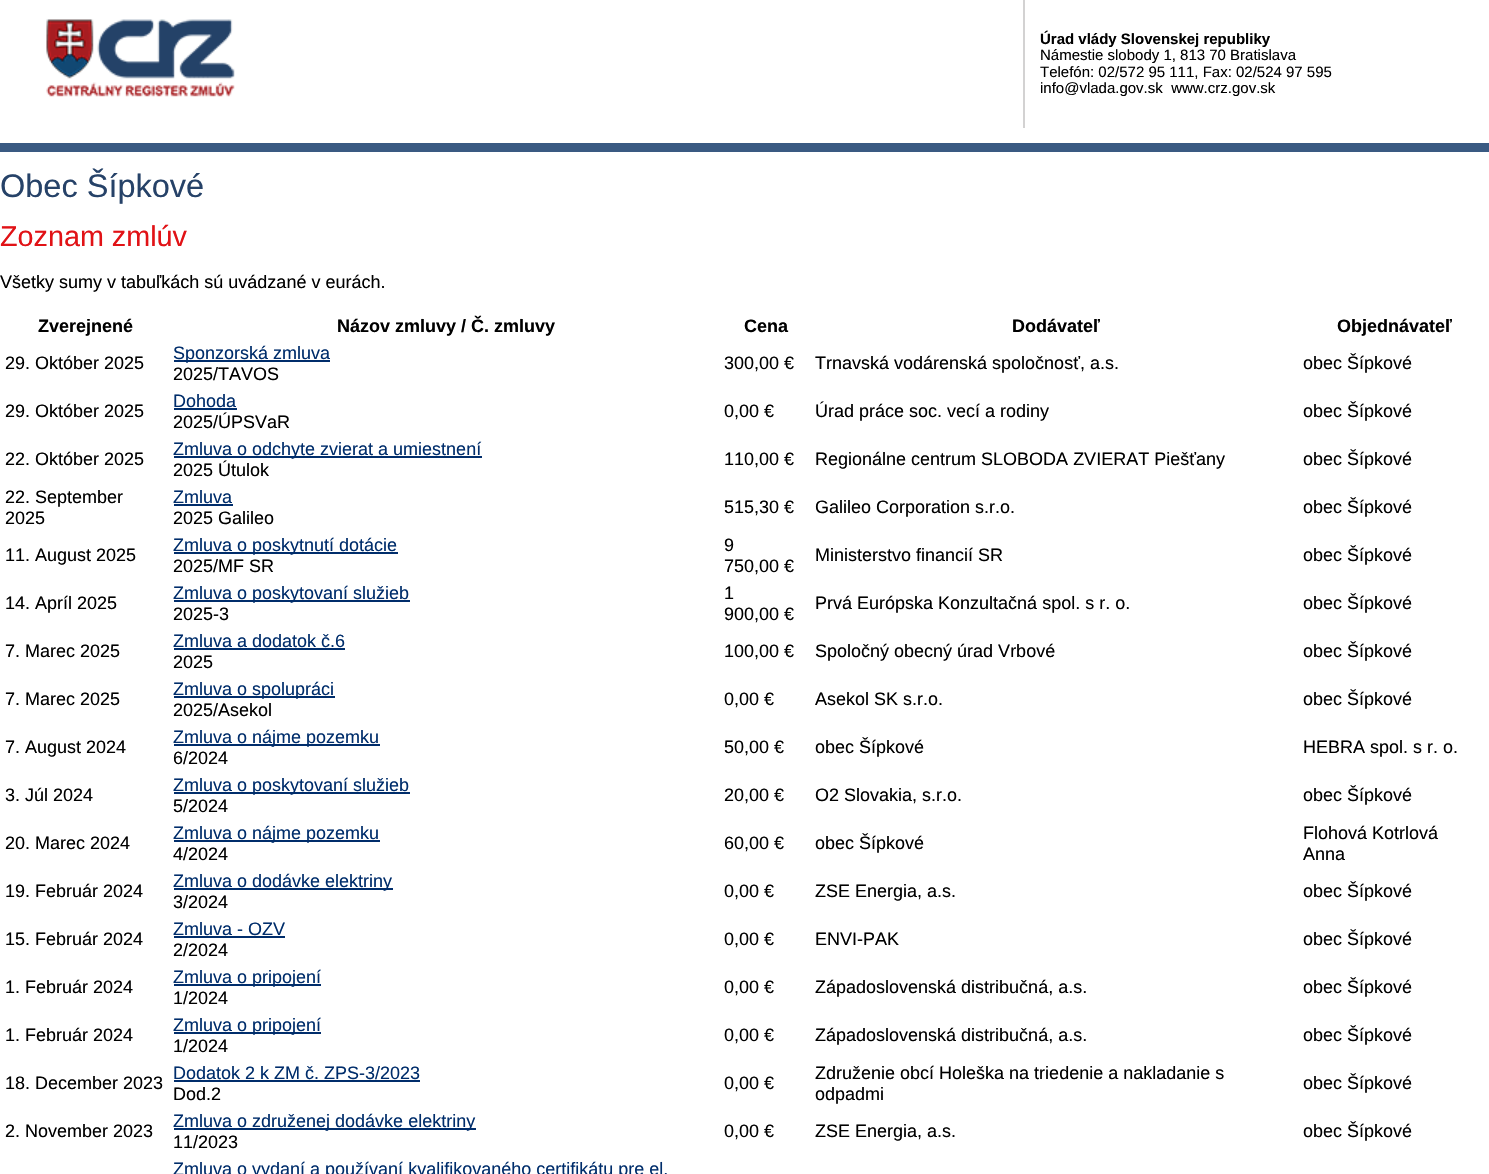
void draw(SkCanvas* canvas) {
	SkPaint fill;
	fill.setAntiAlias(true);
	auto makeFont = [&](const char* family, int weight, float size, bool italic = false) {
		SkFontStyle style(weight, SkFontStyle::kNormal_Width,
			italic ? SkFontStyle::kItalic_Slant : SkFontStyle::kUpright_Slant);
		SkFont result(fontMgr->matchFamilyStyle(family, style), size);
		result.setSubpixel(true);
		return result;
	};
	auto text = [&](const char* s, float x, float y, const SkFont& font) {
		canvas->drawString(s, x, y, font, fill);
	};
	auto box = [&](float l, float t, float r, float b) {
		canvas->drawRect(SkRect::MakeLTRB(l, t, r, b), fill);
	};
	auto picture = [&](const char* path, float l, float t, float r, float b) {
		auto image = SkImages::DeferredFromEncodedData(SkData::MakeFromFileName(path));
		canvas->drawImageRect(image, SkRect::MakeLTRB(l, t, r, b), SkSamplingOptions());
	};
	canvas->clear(0xFFFFFFFF);
	fill.setColor(0xFF3A5A82);
	box(0, 143, 1489, 152);
	picture("image0.png", 46, 19, 235, 97);
	fill.setColor(0xFFD3D2D2);
	box(1023, 0, 1025, 128);
	fill.setColor(0xFF002D6B);
	box(174, 360, 330, 362);
	box(174, 408, 237, 410);
	box(174, 456, 482, 458);
	box(174, 504, 233, 506);
	box(174, 552, 398, 554);
	box(174, 600, 410, 602);
	box(174, 648, 345, 650);
	box(174, 696, 335, 698);
	box(174, 744, 380, 746);
	box(174, 792, 410, 794);
	box(174, 840, 380, 842);
	box(174, 888, 393, 890);
	box(174, 936, 285, 938);
	box(174, 984, 321, 986);
	box(174, 1032, 321, 1034);
	box(174, 1080, 420, 1082);
	box(174, 1128, 476, 1130);
	auto font1 = makeFont("Liberation Sans", 700, 15);
	fill.setColor(0xFF000000);
	text("Úrad vlády Slovenskej republiky", 1040, 44, font1);
	auto font2 = makeFont("Liberation Sans", 400, 15);
	text("Námestie slobody 1, 813 70 Bratislava", 1040, 60, font2);
	text("Telefón: 02/572 95 111, Fax: 02/524 97 595", 1040, 77, font2);
	text("info@vlada.gov.sk  www.crz.gov.sk", 1040, 93, font2);
	auto font3 = makeFont("Liberation Sans", 400, 32.5f);
	fill.setColor(0xFF264268);
	text("Obec Šípkové", 0, 197, font3);
	auto font4 = makeFont("Liberation Sans", 400, 28.75f);
	fill.setColor(0xFFE11216);
	text("Zoznam zmlúv", 0, 246, font4);
	auto font5 = makeFont("Liberation Sans", 400, 18);
	fill.setColor(0xFF000000);
	text("Všetky sumy v tabuľkách sú uvádzané v eurách.", 0, 288, font5);
	auto font6 = makeFont("Liberation Sans", 700, 18);
	text("Zverejnené", 38, 332, font6);
	text("Názov zmluvy / Č. zmluvy", 337, 332, font6);
	text("Cena", 744, 332, font6);
	text("Dodávateľ", 1012, 332, font6);
	text("Objednávateľ", 1337, 332, font6);
	text("29. Október 2025", 5, 369, font5);
	fill.setColor(0xFF002D6B);
	text("Sponzorská zmluva", 173, 359, font5);
	fill.setColor(0xFF000000);
	text("2025/TAVOS", 173, 380, font5);
	text("300,00 €", 724, 369, font5);
	text("Trnavská vodárenská spoločnosť, a.s.", 815, 369, font5);
	text("obec Šípkové", 1303, 369, font5);
	text("29. Október 2025", 5, 417, font5);
	fill.setColor(0xFF002D6B);
	text("Dohoda", 173, 407, font5);
	fill.setColor(0xFF000000);
	text("2025/ÚPSVaR", 173, 428, font5);
	text("0,00 €", 724, 417, font5);
	text("Úrad práce soc. vecí a rodiny", 815, 417, font5);
	text("obec Šípkové", 1303, 417, font5);
	text("22. Október 2025", 5, 465, font5);
	fill.setColor(0xFF002D6B);
	text("Zmluva o odchyte zvierat a umiestnení", 173, 455, font5);
	fill.setColor(0xFF000000);
	text("2025 Útulok", 173, 476, font5);
	text("110,00 €", 724, 465, font5);
	text("Regionálne centrum SLOBODA ZVIERAT Piešťany", 815, 465, font5);
	text("obec Šípkové", 1303, 465, font5);
	text("22. September", 5, 503, font5);
	text("2025", 5, 524, font5);
	fill.setColor(0xFF002D6B);
	text("Zmluva", 173, 503, font5);
	fill.setColor(0xFF000000);
	text("2025 Galileo", 173, 524, font5);
	text("515,30 €", 724, 513, font5);
	text("Galileo Corporation s.r.o.", 815, 513, font5);
	text("obec Šípkové", 1303, 513, font5);
	text("11. August 2025", 5, 561, font5);
	fill.setColor(0xFF002D6B);
	text("Zmluva o poskytnutí dotácie", 173, 551, font5);
	fill.setColor(0xFF000000);
	text("2025/MF SR", 173, 572, font5);
	text("9", 724, 551, font5);
	text("750,00 €", 724, 572, font5);
	text("Ministerstvo financií SR", 815, 561, font5);
	text("obec Šípkové", 1303, 561, font5);
	text("14. Apríl 2025", 5, 609, font5);
	fill.setColor(0xFF002D6B);
	text("Zmluva o poskytovaní služieb", 173, 599, font5);
	fill.setColor(0xFF000000);
	text("2025-3", 173, 620, font5);
	text("1", 724, 599, font5);
	text("900,00 €", 724, 620, font5);
	text("Prvá Európska Konzultačná spol. s r. o.", 815, 609, font5);
	text("obec Šípkové", 1303, 609, font5);
	text("7. Marec 2025", 5, 657, font5);
	fill.setColor(0xFF002D6B);
	text("Zmluva a dodatok č.6", 173, 647, font5);
	fill.setColor(0xFF000000);
	text("2025", 173, 668, font5);
	text("100,00 €", 724, 657, font5);
	text("Spoločný obecný úrad Vrbové", 815, 657, font5);
	text("obec Šípkové", 1303, 657, font5);
	text("7. Marec 2025", 5, 705, font5);
	fill.setColor(0xFF002D6B);
	text("Zmluva o spolupráci", 173, 695, font5);
	fill.setColor(0xFF000000);
	text("2025/Asekol", 173, 716, font5);
	text("0,00 €", 724, 705, font5);
	text("Asekol SK s.r.o.", 815, 705, font5);
	text("obec Šípkové", 1303, 705, font5);
	text("7. August 2024", 5, 753, font5);
	fill.setColor(0xFF002D6B);
	text("Zmluva o nájme pozemku", 173, 743, font5);
	fill.setColor(0xFF000000);
	text("6/2024", 173, 764, font5);
	text("50,00 €", 724, 753, font5);
	text("obec Šípkové", 815, 753, font5);
	text("HEBRA spol. s r. o.", 1303, 753, font5);
	text("3. Júl 2024", 5, 801, font5);
	fill.setColor(0xFF002D6B);
	text("Zmluva o poskytovaní služieb", 173, 791, font5);
	fill.setColor(0xFF000000);
	text("5/2024", 173, 812, font5);
	text("20,00 €", 724, 801, font5);
	text("O2 Slovakia, s.r.o.", 815, 801, font5);
	text("obec Šípkové", 1303, 801, font5);
	text("20. Marec 2024", 5, 849, font5);
	fill.setColor(0xFF002D6B);
	text("Zmluva o nájme pozemku", 173, 839, font5);
	fill.setColor(0xFF000000);
	text("4/2024", 173, 860, font5);
	text("60,00 €", 724, 849, font5);
	text("obec Šípkové", 815, 849, font5);
	text("Flohová Kotrlová", 1303, 839, font5);
	text("Anna", 1303, 860, font5);
	text("19. Február 2024", 5, 897, font5);
	fill.setColor(0xFF002D6B);
	text("Zmluva o dodávke elektriny", 173, 887, font5);
	fill.setColor(0xFF000000);
	text("3/2024", 173, 908, font5);
	text("0,00 €", 724, 897, font5);
	text("ZSE Energia, a.s.", 815, 897, font5);
	text("obec Šípkové", 1303, 897, font5);
	text("15. Február 2024", 5, 945, font5);
	fill.setColor(0xFF002D6B);
	text("Zmluva - OZV", 173, 935, font5);
	fill.setColor(0xFF000000);
	text("2/2024", 173, 956, font5);
	text("0,00 €", 724, 945, font5);
	text("ENVI-PAK", 815, 945, font5);
	text("obec Šípkové", 1303, 945, font5);
	text("1. Február 2024", 5, 993, font5);
	fill.setColor(0xFF002D6B);
	text("Zmluva o pripojení", 173, 983, font5);
	fill.setColor(0xFF000000);
	text("1/2024", 173, 1004, font5);
	text("0,00 €", 724, 993, font5);
	text("Západoslovenská distribučná, a.s.", 815, 993, font5);
	text("obec Šípkové", 1303, 993, font5);
	text("1. Február 2024", 5, 1041, font5);
	fill.setColor(0xFF002D6B);
	text("Zmluva o pripojení", 173, 1031, font5);
	fill.setColor(0xFF000000);
	text("1/2024", 173, 1052, font5);
	text("0,00 €", 724, 1041, font5);
	text("Západoslovenská distribučná, a.s.", 815, 1041, font5);
	text("obec Šípkové", 1303, 1041, font5);
	text("18. December 2023", 5, 1089, font5);
	fill.setColor(0xFF002D6B);
	text("Dodatok 2 k ZM č. ZPS-3/2023", 173, 1079, font5);
	fill.setColor(0xFF000000);
	text("Dod.2", 173, 1100, font5);
	text("0,00 €", 724, 1089, font5);
	text("Združenie obcí Holeška na triedenie a nakladanie s", 815, 1079, font5);
	text("odpadmi", 815, 1100, font5);
	text("obec Šípkové", 1303, 1089, font5);
	text("2. November 2023", 5, 1137, font5);
	fill.setColor(0xFF002D6B);
	text("Zmluva o združenej dodávke elektriny", 173, 1127, font5);
	fill.setColor(0xFF000000);
	text("11/2023", 173, 1148, font5);
	text("0,00 €", 724, 1137, font5);
	text("ZSE Energia, a.s.", 815, 1137, font5);
	text("obec Šípkové", 1303, 1137, font5);
	fill.setColor(0xFF002D6B);
	text("Zmluva o vydaní a používaní kvalifikovaného certifikátu pre el.", 173, 1175, font5);
}
